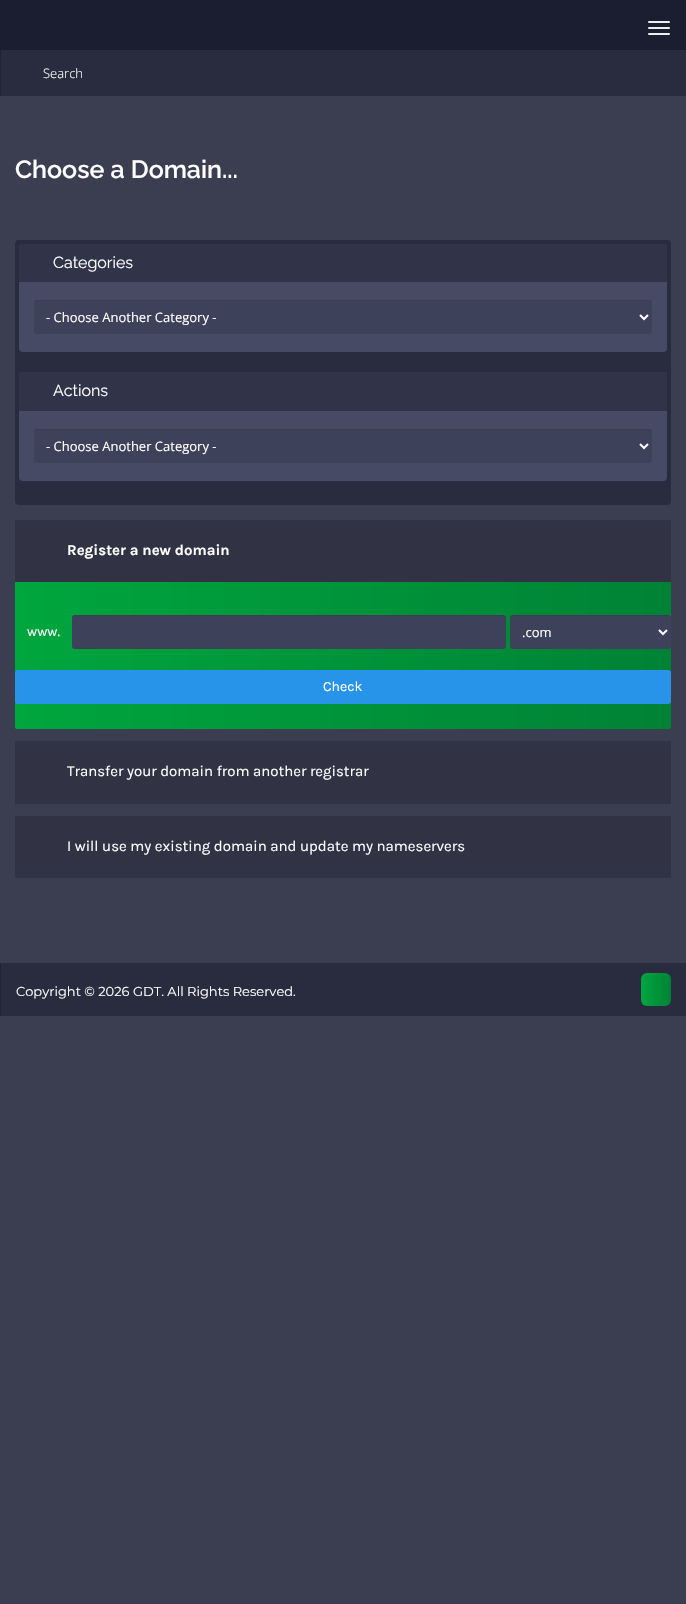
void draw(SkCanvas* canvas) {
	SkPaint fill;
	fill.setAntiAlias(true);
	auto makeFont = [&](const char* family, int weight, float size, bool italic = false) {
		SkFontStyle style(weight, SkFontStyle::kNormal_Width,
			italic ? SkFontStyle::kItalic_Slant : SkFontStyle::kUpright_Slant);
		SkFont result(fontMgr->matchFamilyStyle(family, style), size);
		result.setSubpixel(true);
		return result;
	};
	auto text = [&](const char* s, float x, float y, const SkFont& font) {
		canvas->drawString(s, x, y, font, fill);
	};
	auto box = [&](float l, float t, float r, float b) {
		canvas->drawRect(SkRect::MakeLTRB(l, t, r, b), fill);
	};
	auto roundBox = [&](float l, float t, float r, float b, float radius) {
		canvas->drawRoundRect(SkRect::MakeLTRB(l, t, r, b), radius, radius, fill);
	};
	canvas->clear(0xFF3B3D50);
	fill.setColor(0xFF1A1E30);
	box(0, 0, 686, 50);
	fill.setColor(0xFFEEEEEE);
	roundBox(648, 21, 670, 23, 1);
	roundBox(648, 27, 670, 29, 1);
	roundBox(648, 33, 670, 35, 1);
	fill.setColor(0xFF292C3E);
	box(1, 50, 686, 96);
	fill.setColor(0xFF212433);
	box(0, 50, 1, 96);
	fill.setColor(0xFF292C3E);
	roundBox(15, 240, 671, 505, 4);
	fill.setColor(0xFF474A64);
	roundBox(19, 244, 667, 352, 4);
	fill.setColor(0xFF313449);
	canvas->drawPath(SkPathBuilder().moveTo(22, 244).lineTo(664, 244).cubicTo(665.5f, 244, 667, 245.5f, 667, 247).lineTo(667, 282).lineTo(19, 282).lineTo(19, 247).cubicTo(19, 245.5f, 20.5f, 244, 22, 244).close().detach(), fill);
	fill.setColor(0xFF3E415A);
	roundBox(34, 300, 652, 334, 3);
	fill.setColor(0x12000000);
	canvas->drawPath(SkPathBuilder().moveTo(37, 301).lineTo(649, 301).cubicTo(651, 301, 652, 302, 652, 304).lineTo(652, 303).cubicTo(652, 301, 651, 300, 649, 300).lineTo(37, 300).cubicTo(35, 300, 34, 301, 34, 303).lineTo(34, 304).cubicTo(34, 302, 35, 301, 37, 301).close().detach(), fill);
	fill.setStyle(SkPaint::kStroke_Style);
	fill.setStrokeWidth(2);
	fill.setColor(0xFFFFFFFF);
	canvas->drawPath(SkPathBuilder().moveTo(640, 315).lineTo(644, 319).lineTo(648, 315).detach(), fill);
	fill.setStyle(SkPaint::kFill_Style);
	fill.setColor(0xFF474A64);
	roundBox(19, 372, 667, 481, 4);
	fill.setColor(0xFF313449);
	canvas->drawPath(SkPathBuilder().moveTo(22, 372).lineTo(664, 372).cubicTo(665.5f, 372, 667, 373.5f, 667, 375).lineTo(667, 411).lineTo(19, 411).lineTo(19, 375).cubicTo(19, 373.5f, 20.5f, 372, 22, 372).close().detach(), fill);
	fill.setColor(0xFF3E415A);
	roundBox(34, 429, 652, 463, 3);
	fill.setColor(0x12000000);
	canvas->drawPath(SkPathBuilder().moveTo(37, 430).lineTo(649, 430).cubicTo(651, 430, 652, 431, 652, 433).lineTo(652, 432).cubicTo(652, 430, 651, 429, 649, 429).lineTo(37, 429).cubicTo(35, 429, 34, 430, 34, 432).lineTo(34, 433).cubicTo(34, 431, 35, 430, 37, 430).close().detach(), fill);
	fill.setStyle(SkPaint::kStroke_Style);
	fill.setColor(0xFFFFFFFF);
	canvas->drawPath(SkPathBuilder().moveTo(640, 444).lineTo(644, 448).lineTo(648, 444).detach(), fill);
	fill.setStyle(SkPaint::kFill_Style);
	{
		const SkColor colors[] = {0xFF00A63E, 0xFF008236};
		const float stops[] = {0, 1};
		const SkPoint ends[] = {{15, 625}, {671, 625}};
		fill.setShader(SkGradientShader::MakeLinear(ends, colors, stops, 2, SkTileMode::kClamp));
		fill.setAlpha(255);
	}
	roundBox(15, 520, 671, 729, 2);
	fill.setShader(nullptr);
	fill.setColor(0xFF313244);
	box(15, 520, 671, 582);
	fill.setColor(0xFF3E415A);
	roundBox(72, 615, 506, 649, 3);
	fill.setColor(0x12000000);
	canvas->drawPath(SkPathBuilder().moveTo(75, 616).lineTo(503, 616).cubicTo(505, 616, 506, 617, 506, 619).cubicTo(506, 617, 505, 615, 503, 615).lineTo(75, 615).cubicTo(73, 615, 72, 617, 72, 619).cubicTo(72, 617, 73, 616, 75, 616).close().detach(), fill);
	fill.setColor(0xFF3E415A);
	roundBox(510, 615, 671, 649, 3);
	fill.setColor(0x12000000);
	canvas->drawPath(SkPathBuilder().moveTo(513, 616).lineTo(668, 616).cubicTo(670, 616, 671, 617, 671, 619).cubicTo(671, 617, 670, 615, 668, 615).lineTo(512, 615).cubicTo(510, 615, 510, 617, 510, 619).cubicTo(510, 617, 511, 616, 513, 616).close().detach(), fill);
	fill.setStyle(SkPaint::kStroke_Style);
	fill.setColor(0xFFFFFFFF);
	canvas->drawPath(SkPathBuilder().moveTo(659, 630).lineTo(663, 634).lineTo(667, 630).detach(), fill);
	fill.setStyle(SkPaint::kFill_Style);
	fill.setColor(0xFF2794E9);
	roundBox(15, 670, 671, 704, 3);
	fill.setColor(0xFF313244);
	box(15, 741, 671, 804);
	box(15, 816, 671, 878);
	fill.setColor(0xFF292C3E);
	box(1, 963, 686, 1016);
	fill.setColor(0xFF212433);
	box(0, 963, 1, 1016);
	{
		const SkColor colors[] = {0xFF00A63E, 0xFF008236};
		const float stops[] = {0, 1};
		const SkPoint ends[] = {{641, 990}, {671, 990}};
		fill.setShader(SkGradientShader::MakeLinear(ends, colors, stops, 2, SkTileMode::kClamp));
		fill.setAlpha(255);
	}
	roundBox(641, 973, 671, 1006, 6);
	auto font1 = makeFont("Open Sans", 300, 13);
	fill.setShader(nullptr);
	fill.setColor(0xFFFFFFFF);
	text("Search", 43, 78, font1);
	auto font2 = makeFont("Raleway", 600, 25);
	text("Choose a Domain...", 15, 178, font2);
	auto font3 = makeFont("Raleway", 400, 16);
	text("Categories", 53, 268, font3);
	auto font4 = makeFont("Open Sans", 400, 13);
	text("- Choose Another Category -", 46, 322, font4);
	text("Actions", 53, 396, font3);
	text("- Choose Another Category -", 46, 451, font4);
	auto font5 = makeFont("Karla", 700, 15);
	text("Register a new domain", 67, 555, font5);
	auto font6 = makeFont("Karla", 400, 14);
	text("www.", 27, 636, font6);
	text(".com", 522, 637, font4);
	text("Check", 323, 691, font6);
	auto font7 = makeFont("Karla", 400, 15);
	text("Transfer your domain from another registrar", 67, 776, font7);
	text("I will use my existing domain and update my nameservers", 67, 851, font7);
	auto font8 = makeFont("Montserrat", 400, 13);
	text("Copyright © 2026 GDT. All Rights Reserved.", 16, 996, font8);
}
